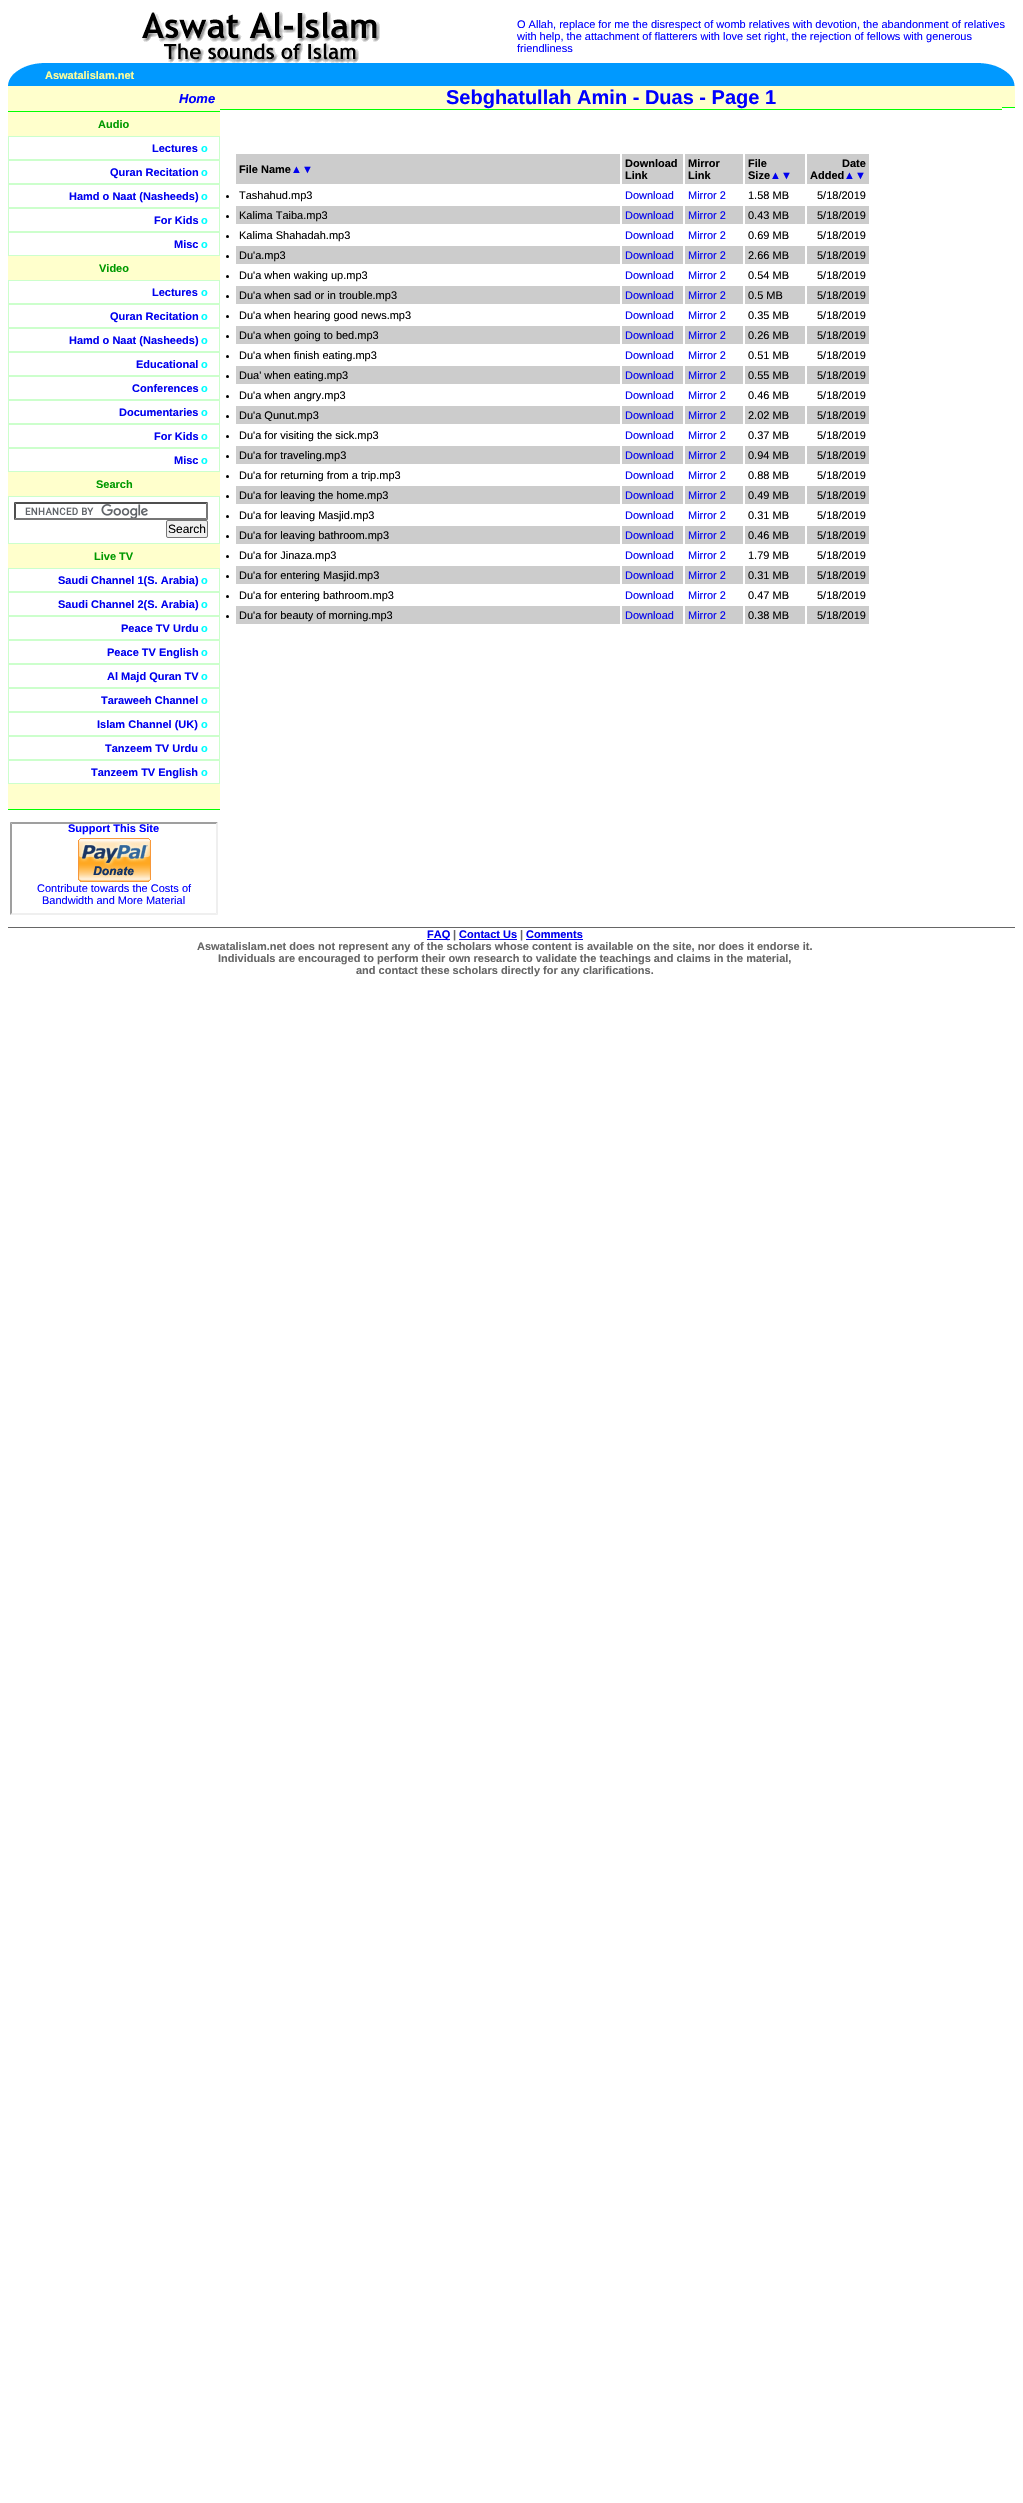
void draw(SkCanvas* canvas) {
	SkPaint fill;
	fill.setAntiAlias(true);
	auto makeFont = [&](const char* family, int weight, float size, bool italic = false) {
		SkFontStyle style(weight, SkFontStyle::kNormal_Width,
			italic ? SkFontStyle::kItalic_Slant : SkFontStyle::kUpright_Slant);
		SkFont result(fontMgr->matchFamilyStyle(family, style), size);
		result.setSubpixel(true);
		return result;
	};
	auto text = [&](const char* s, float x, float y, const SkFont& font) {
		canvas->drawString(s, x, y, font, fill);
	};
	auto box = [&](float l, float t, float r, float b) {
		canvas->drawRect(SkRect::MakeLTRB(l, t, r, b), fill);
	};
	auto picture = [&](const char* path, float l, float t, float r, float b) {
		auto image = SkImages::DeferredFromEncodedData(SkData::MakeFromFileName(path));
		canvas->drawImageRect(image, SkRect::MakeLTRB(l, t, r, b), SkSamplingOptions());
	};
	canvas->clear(0xFFFFFFFF);
	picture("image0.png", 142, 11, 380, 63);
	picture("image1.png", 8, 63, 45, 86);
	fill.setColor(0xFF0099FF);
	box(45, 63, 977, 86);
	picture("image2.png", 977, 63, 1015, 86);
	fill.setColor(0xFFFFFFCC);
	box(8, 86, 220, 111);
	fill.setColor(0xFF00FF00);
	box(8, 111, 220, 112);
	fill.setColor(0xFFFFFFCC);
	box(8, 112, 220, 136);
	fill.setStyle(SkPaint::kStroke_Style);
	fill.setStrokeWidth(1);
	fill.setColor(0xFFCCFFCC);
	canvas->drawRect(SkRect::MakeLTRB(8.5f, 136.5f, 219.5f, 159.5f), fill);
	canvas->drawRect(SkRect::MakeLTRB(8.5f, 160.5f, 219.5f, 183.5f), fill);
	canvas->drawRect(SkRect::MakeLTRB(8.5f, 184.5f, 219.5f, 207.5f), fill);
	canvas->drawRect(SkRect::MakeLTRB(8.5f, 208.5f, 219.5f, 231.5f), fill);
	canvas->drawRect(SkRect::MakeLTRB(8.5f, 232.5f, 219.5f, 255.5f), fill);
	fill.setStyle(SkPaint::kFill_Style);
	fill.setColor(0xFFFFFFCC);
	box(8, 256, 220, 280);
	fill.setStyle(SkPaint::kStroke_Style);
	fill.setColor(0xFFCCFFCC);
	canvas->drawRect(SkRect::MakeLTRB(8.5f, 280.5f, 219.5f, 303.5f), fill);
	canvas->drawRect(SkRect::MakeLTRB(8.5f, 304.5f, 219.5f, 327.5f), fill);
	canvas->drawRect(SkRect::MakeLTRB(8.5f, 328.5f, 219.5f, 351.5f), fill);
	canvas->drawRect(SkRect::MakeLTRB(8.5f, 352.5f, 219.5f, 375.5f), fill);
	canvas->drawRect(SkRect::MakeLTRB(8.5f, 376.5f, 219.5f, 399.5f), fill);
	canvas->drawRect(SkRect::MakeLTRB(8.5f, 400.5f, 219.5f, 423.5f), fill);
	canvas->drawRect(SkRect::MakeLTRB(8.5f, 424.5f, 219.5f, 447.5f), fill);
	canvas->drawRect(SkRect::MakeLTRB(8.5f, 448.5f, 219.5f, 471.5f), fill);
	fill.setStyle(SkPaint::kFill_Style);
	fill.setColor(0xFFFFFFCC);
	box(8, 472, 220, 496);
	fill.setStyle(SkPaint::kStroke_Style);
	fill.setColor(0xFFCCFFCC);
	canvas->drawRect(SkRect::MakeLTRB(8.5f, 496.5f, 219.5f, 543.5f), fill);
	picture("image3.png", 25, 504, 148, 518);
	fill.setStyle(SkPaint::kFill_Style);
	fill.setColor(0xFF4F4F4F);
	canvas->drawPath(SkPathBuilder().moveTo(14, 502).lineTo(208, 502).lineTo(206, 504).lineTo(16, 504).close().detach(), fill);
	fill.setColor(0xFF767676);
	canvas->drawPath(SkPathBuilder().moveTo(208, 502).lineTo(208, 520).lineTo(206, 518).lineTo(206, 504).close().detach(), fill);
	canvas->drawPath(SkPathBuilder().moveTo(208, 520).lineTo(14, 520).lineTo(16, 518).lineTo(206, 518).close().detach(), fill);
	fill.setColor(0xFF4F4F4F);
	canvas->drawPath(SkPathBuilder().moveTo(14, 520).lineTo(14, 502).lineTo(16, 504).lineTo(16, 518).close().detach(), fill);
	fill.setColor(0xFFEFEFEF);
	canvas->drawRoundRect(SkRect::MakeLTRB(166.5f, 520.5f, 207.5f, 537.5f), 1.5f, 1.5f, fill);
	fill.setStyle(SkPaint::kStroke_Style);
	fill.setColor(0xFF767676);
	canvas->drawRoundRect(SkRect::MakeLTRB(166.5f, 520.5f, 207.5f, 537.5f), 1.5f, 1.5f, fill);
	fill.setStyle(SkPaint::kFill_Style);
	fill.setColor(0xFFFFFFCC);
	box(8, 544, 220, 568);
	fill.setStyle(SkPaint::kStroke_Style);
	fill.setColor(0xFFCCFFCC);
	canvas->drawRect(SkRect::MakeLTRB(8.5f, 568.5f, 219.5f, 591.5f), fill);
	canvas->drawRect(SkRect::MakeLTRB(8.5f, 592.5f, 219.5f, 615.5f), fill);
	canvas->drawRect(SkRect::MakeLTRB(8.5f, 616.5f, 219.5f, 639.5f), fill);
	canvas->drawRect(SkRect::MakeLTRB(8.5f, 640.5f, 219.5f, 663.5f), fill);
	canvas->drawRect(SkRect::MakeLTRB(8.5f, 664.5f, 219.5f, 687.5f), fill);
	canvas->drawRect(SkRect::MakeLTRB(8.5f, 688.5f, 219.5f, 711.5f), fill);
	canvas->drawRect(SkRect::MakeLTRB(8.5f, 712.5f, 219.5f, 735.5f), fill);
	canvas->drawRect(SkRect::MakeLTRB(8.5f, 736.5f, 219.5f, 759.5f), fill);
	canvas->drawRect(SkRect::MakeLTRB(8.5f, 760.5f, 219.5f, 783.5f), fill);
	fill.setStyle(SkPaint::kFill_Style);
	fill.setColor(0xFFFFFFCC);
	box(8, 784, 220, 809);
	fill.setColor(0xFF00FF00);
	box(8, 809, 220, 810);
	fill.setColor(0xFF9F9F9F);
	canvas->drawPath(SkPathBuilder().moveTo(10, 822).lineTo(218, 822).lineTo(216, 824).lineTo(12, 824).close().detach(), fill);
	fill.setColor(0xFFEFEFEF);
	canvas->drawPath(SkPathBuilder().moveTo(218, 822).lineTo(218, 915).lineTo(216, 913).lineTo(216, 824).close().detach(), fill);
	canvas->drawPath(SkPathBuilder().moveTo(218, 915).lineTo(10, 915).lineTo(12, 913).lineTo(216, 913).close().detach(), fill);
	fill.setColor(0xFF9F9F9F);
	canvas->drawPath(SkPathBuilder().moveTo(10, 915).lineTo(10, 822).lineTo(12, 824).lineTo(12, 913).close().detach(), fill);
	picture("image4.png", 78, 838, 151, 882);
	fill.setColor(0xFFFFFFCC);
	box(220, 86, 1002, 109);
	fill.setColor(0xFF00FF00);
	box(220, 109, 1002, 110);
	fill.setColor(0xFFCCCCCC);
	box(236, 154, 869, 184);
	fill.setStyle(SkPaint::kStroke_Style);
	fill.setColor(0xFFFFFFFF);
	canvas->drawRect(SkRect::MakeLTRB(235.5f, 153.5f, 620.5f, 184.5f), fill);
	canvas->drawRect(SkRect::MakeLTRB(621.5f, 153.5f, 683.5f, 184.5f), fill);
	canvas->drawRect(SkRect::MakeLTRB(684.5f, 153.5f, 743.5f, 184.5f), fill);
	canvas->drawRect(SkRect::MakeLTRB(744.5f, 153.5f, 805.5f, 184.5f), fill);
	canvas->drawRect(SkRect::MakeLTRB(806.5f, 153.5f, 869.5f, 184.5f), fill);
	fill.setStyle(SkPaint::kFill_Style);
	fill.setColor(0xFF000000);
	canvas->drawCircle(227.5f, 196.5f, 1.5f, fill);
	fill.setColor(0xFFCCCCCC);
	box(236, 206, 869, 224);
	fill.setStyle(SkPaint::kStroke_Style);
	fill.setColor(0xFFFFFFFF);
	canvas->drawRect(SkRect::MakeLTRB(235.5f, 205.5f, 620.5f, 224.5f), fill);
	fill.setStyle(SkPaint::kFill_Style);
	fill.setColor(0xFF000000);
	canvas->drawCircle(227.5f, 216.5f, 1.5f, fill);
	fill.setStyle(SkPaint::kStroke_Style);
	fill.setColor(0xFFFFFFFF);
	canvas->drawRect(SkRect::MakeLTRB(621.5f, 205.5f, 683.5f, 224.5f), fill);
	canvas->drawRect(SkRect::MakeLTRB(684.5f, 205.5f, 743.5f, 224.5f), fill);
	canvas->drawRect(SkRect::MakeLTRB(744.5f, 205.5f, 805.5f, 224.5f), fill);
	canvas->drawRect(SkRect::MakeLTRB(806.5f, 205.5f, 869.5f, 224.5f), fill);
	fill.setStyle(SkPaint::kFill_Style);
	fill.setColor(0xFF000000);
	canvas->drawCircle(227.5f, 236.5f, 1.5f, fill);
	fill.setColor(0xFFCCCCCC);
	box(236, 246, 869, 264);
	fill.setStyle(SkPaint::kStroke_Style);
	fill.setColor(0xFFFFFFFF);
	canvas->drawRect(SkRect::MakeLTRB(235.5f, 245.5f, 620.5f, 264.5f), fill);
	fill.setStyle(SkPaint::kFill_Style);
	fill.setColor(0xFF000000);
	canvas->drawCircle(227.5f, 256.5f, 1.5f, fill);
	fill.setStyle(SkPaint::kStroke_Style);
	fill.setColor(0xFFFFFFFF);
	canvas->drawRect(SkRect::MakeLTRB(621.5f, 245.5f, 683.5f, 264.5f), fill);
	canvas->drawRect(SkRect::MakeLTRB(684.5f, 245.5f, 743.5f, 264.5f), fill);
	canvas->drawRect(SkRect::MakeLTRB(744.5f, 245.5f, 805.5f, 264.5f), fill);
	canvas->drawRect(SkRect::MakeLTRB(806.5f, 245.5f, 869.5f, 264.5f), fill);
	fill.setStyle(SkPaint::kFill_Style);
	fill.setColor(0xFF000000);
	canvas->drawCircle(227.5f, 276.5f, 1.5f, fill);
	fill.setColor(0xFFCCCCCC);
	box(236, 286, 869, 304);
	fill.setStyle(SkPaint::kStroke_Style);
	fill.setColor(0xFFFFFFFF);
	canvas->drawRect(SkRect::MakeLTRB(235.5f, 285.5f, 620.5f, 304.5f), fill);
	fill.setStyle(SkPaint::kFill_Style);
	fill.setColor(0xFF000000);
	canvas->drawCircle(227.5f, 296.5f, 1.5f, fill);
	fill.setStyle(SkPaint::kStroke_Style);
	fill.setColor(0xFFFFFFFF);
	canvas->drawRect(SkRect::MakeLTRB(621.5f, 285.5f, 683.5f, 304.5f), fill);
	canvas->drawRect(SkRect::MakeLTRB(684.5f, 285.5f, 743.5f, 304.5f), fill);
	canvas->drawRect(SkRect::MakeLTRB(744.5f, 285.5f, 805.5f, 304.5f), fill);
	canvas->drawRect(SkRect::MakeLTRB(806.5f, 285.5f, 869.5f, 304.5f), fill);
	fill.setStyle(SkPaint::kFill_Style);
	fill.setColor(0xFF000000);
	canvas->drawCircle(227.5f, 316.5f, 1.5f, fill);
	fill.setColor(0xFFCCCCCC);
	box(236, 326, 869, 344);
	fill.setStyle(SkPaint::kStroke_Style);
	fill.setColor(0xFFFFFFFF);
	canvas->drawRect(SkRect::MakeLTRB(235.5f, 325.5f, 620.5f, 344.5f), fill);
	fill.setStyle(SkPaint::kFill_Style);
	fill.setColor(0xFF000000);
	canvas->drawCircle(227.5f, 336.5f, 1.5f, fill);
	fill.setStyle(SkPaint::kStroke_Style);
	fill.setColor(0xFFFFFFFF);
	canvas->drawRect(SkRect::MakeLTRB(621.5f, 325.5f, 683.5f, 344.5f), fill);
	canvas->drawRect(SkRect::MakeLTRB(684.5f, 325.5f, 743.5f, 344.5f), fill);
	canvas->drawRect(SkRect::MakeLTRB(744.5f, 325.5f, 805.5f, 344.5f), fill);
	canvas->drawRect(SkRect::MakeLTRB(806.5f, 325.5f, 869.5f, 344.5f), fill);
	fill.setStyle(SkPaint::kFill_Style);
	fill.setColor(0xFF000000);
	canvas->drawCircle(227.5f, 356.5f, 1.5f, fill);
	fill.setColor(0xFFCCCCCC);
	box(236, 366, 869, 384);
	fill.setStyle(SkPaint::kStroke_Style);
	fill.setColor(0xFFFFFFFF);
	canvas->drawRect(SkRect::MakeLTRB(235.5f, 365.5f, 620.5f, 384.5f), fill);
	fill.setStyle(SkPaint::kFill_Style);
	fill.setColor(0xFF000000);
	canvas->drawCircle(227.5f, 376.5f, 1.5f, fill);
	fill.setStyle(SkPaint::kStroke_Style);
	fill.setColor(0xFFFFFFFF);
	canvas->drawRect(SkRect::MakeLTRB(621.5f, 365.5f, 683.5f, 384.5f), fill);
	canvas->drawRect(SkRect::MakeLTRB(684.5f, 365.5f, 743.5f, 384.5f), fill);
	canvas->drawRect(SkRect::MakeLTRB(744.5f, 365.5f, 805.5f, 384.5f), fill);
	canvas->drawRect(SkRect::MakeLTRB(806.5f, 365.5f, 869.5f, 384.5f), fill);
	fill.setStyle(SkPaint::kFill_Style);
	fill.setColor(0xFF000000);
	canvas->drawCircle(227.5f, 396.5f, 1.5f, fill);
	fill.setColor(0xFFCCCCCC);
	box(236, 406, 869, 424);
	fill.setStyle(SkPaint::kStroke_Style);
	fill.setColor(0xFFFFFFFF);
	canvas->drawRect(SkRect::MakeLTRB(235.5f, 405.5f, 620.5f, 424.5f), fill);
	fill.setStyle(SkPaint::kFill_Style);
	fill.setColor(0xFF000000);
	canvas->drawCircle(227.5f, 416.5f, 1.5f, fill);
	fill.setStyle(SkPaint::kStroke_Style);
	fill.setColor(0xFFFFFFFF);
	canvas->drawRect(SkRect::MakeLTRB(621.5f, 405.5f, 683.5f, 424.5f), fill);
	canvas->drawRect(SkRect::MakeLTRB(684.5f, 405.5f, 743.5f, 424.5f), fill);
	canvas->drawRect(SkRect::MakeLTRB(744.5f, 405.5f, 805.5f, 424.5f), fill);
	canvas->drawRect(SkRect::MakeLTRB(806.5f, 405.5f, 869.5f, 424.5f), fill);
	fill.setStyle(SkPaint::kFill_Style);
	fill.setColor(0xFF000000);
	canvas->drawCircle(227.5f, 436.5f, 1.5f, fill);
	fill.setColor(0xFFCCCCCC);
	box(236, 446, 869, 464);
	fill.setStyle(SkPaint::kStroke_Style);
	fill.setColor(0xFFFFFFFF);
	canvas->drawRect(SkRect::MakeLTRB(235.5f, 445.5f, 620.5f, 464.5f), fill);
	fill.setStyle(SkPaint::kFill_Style);
	fill.setColor(0xFF000000);
	canvas->drawCircle(227.5f, 456.5f, 1.5f, fill);
	fill.setStyle(SkPaint::kStroke_Style);
	fill.setColor(0xFFFFFFFF);
	canvas->drawRect(SkRect::MakeLTRB(621.5f, 445.5f, 683.5f, 464.5f), fill);
	canvas->drawRect(SkRect::MakeLTRB(684.5f, 445.5f, 743.5f, 464.5f), fill);
	canvas->drawRect(SkRect::MakeLTRB(744.5f, 445.5f, 805.5f, 464.5f), fill);
	canvas->drawRect(SkRect::MakeLTRB(806.5f, 445.5f, 869.5f, 464.5f), fill);
	fill.setStyle(SkPaint::kFill_Style);
	fill.setColor(0xFF000000);
	canvas->drawCircle(227.5f, 476.5f, 1.5f, fill);
	fill.setColor(0xFFCCCCCC);
	box(236, 486, 869, 504);
	fill.setStyle(SkPaint::kStroke_Style);
	fill.setColor(0xFFFFFFFF);
	canvas->drawRect(SkRect::MakeLTRB(235.5f, 485.5f, 620.5f, 504.5f), fill);
	fill.setStyle(SkPaint::kFill_Style);
	fill.setColor(0xFF000000);
	canvas->drawCircle(227.5f, 496.5f, 1.5f, fill);
	fill.setStyle(SkPaint::kStroke_Style);
	fill.setColor(0xFFFFFFFF);
	canvas->drawRect(SkRect::MakeLTRB(621.5f, 485.5f, 683.5f, 504.5f), fill);
	canvas->drawRect(SkRect::MakeLTRB(684.5f, 485.5f, 743.5f, 504.5f), fill);
	canvas->drawRect(SkRect::MakeLTRB(744.5f, 485.5f, 805.5f, 504.5f), fill);
	canvas->drawRect(SkRect::MakeLTRB(806.5f, 485.5f, 869.5f, 504.5f), fill);
	fill.setStyle(SkPaint::kFill_Style);
	fill.setColor(0xFF000000);
	canvas->drawCircle(227.5f, 516.5f, 1.5f, fill);
	fill.setColor(0xFFCCCCCC);
	box(236, 526, 869, 544);
	fill.setStyle(SkPaint::kStroke_Style);
	fill.setColor(0xFFFFFFFF);
	canvas->drawRect(SkRect::MakeLTRB(235.5f, 525.5f, 620.5f, 544.5f), fill);
	fill.setStyle(SkPaint::kFill_Style);
	fill.setColor(0xFF000000);
	canvas->drawCircle(227.5f, 536.5f, 1.5f, fill);
	fill.setStyle(SkPaint::kStroke_Style);
	fill.setColor(0xFFFFFFFF);
	canvas->drawRect(SkRect::MakeLTRB(621.5f, 525.5f, 683.5f, 544.5f), fill);
	canvas->drawRect(SkRect::MakeLTRB(684.5f, 525.5f, 743.5f, 544.5f), fill);
	canvas->drawRect(SkRect::MakeLTRB(744.5f, 525.5f, 805.5f, 544.5f), fill);
	canvas->drawRect(SkRect::MakeLTRB(806.5f, 525.5f, 869.5f, 544.5f), fill);
	fill.setStyle(SkPaint::kFill_Style);
	fill.setColor(0xFF000000);
	canvas->drawCircle(227.5f, 556.5f, 1.5f, fill);
	fill.setColor(0xFFCCCCCC);
	box(236, 566, 869, 584);
	fill.setStyle(SkPaint::kStroke_Style);
	fill.setColor(0xFFFFFFFF);
	canvas->drawRect(SkRect::MakeLTRB(235.5f, 565.5f, 620.5f, 584.5f), fill);
	fill.setStyle(SkPaint::kFill_Style);
	fill.setColor(0xFF000000);
	canvas->drawCircle(227.5f, 576.5f, 1.5f, fill);
	fill.setStyle(SkPaint::kStroke_Style);
	fill.setColor(0xFFFFFFFF);
	canvas->drawRect(SkRect::MakeLTRB(621.5f, 565.5f, 683.5f, 584.5f), fill);
	canvas->drawRect(SkRect::MakeLTRB(684.5f, 565.5f, 743.5f, 584.5f), fill);
	canvas->drawRect(SkRect::MakeLTRB(744.5f, 565.5f, 805.5f, 584.5f), fill);
	canvas->drawRect(SkRect::MakeLTRB(806.5f, 565.5f, 869.5f, 584.5f), fill);
	fill.setStyle(SkPaint::kFill_Style);
	fill.setColor(0xFF000000);
	canvas->drawCircle(227.5f, 596.5f, 1.5f, fill);
	fill.setColor(0xFFCCCCCC);
	box(236, 606, 869, 624);
	fill.setStyle(SkPaint::kStroke_Style);
	fill.setColor(0xFFFFFFFF);
	canvas->drawRect(SkRect::MakeLTRB(235.5f, 605.5f, 620.5f, 624.5f), fill);
	fill.setStyle(SkPaint::kFill_Style);
	fill.setColor(0xFF000000);
	canvas->drawCircle(227.5f, 616.5f, 1.5f, fill);
	fill.setStyle(SkPaint::kStroke_Style);
	fill.setColor(0xFFFFFFFF);
	canvas->drawRect(SkRect::MakeLTRB(621.5f, 605.5f, 683.5f, 624.5f), fill);
	canvas->drawRect(SkRect::MakeLTRB(684.5f, 605.5f, 743.5f, 624.5f), fill);
	canvas->drawRect(SkRect::MakeLTRB(744.5f, 605.5f, 805.5f, 624.5f), fill);
	canvas->drawRect(SkRect::MakeLTRB(806.5f, 605.5f, 869.5f, 624.5f), fill);
	fill.setStyle(SkPaint::kFill_Style);
	fill.setColor(0xFFFFFFCC);
	box(1002, 86, 1015, 107);
	fill.setColor(0xFF00FF00);
	box(1002, 107, 1015, 108);
	fill.setColor(0xFF666666);
	box(8, 927, 1015, 928);
	fill.setColor(0xFF0000EE);
	box(427, 939, 450, 940);
	box(459, 939, 517, 940);
	box(526, 939, 583, 940);
	auto font1 = makeFont("Liberation Sans", 400, 11);
	fill.setColor(0xFF0000FF);
	text("O Allah, replace for me the disrespect of womb relatives with devotion, the abandonment of relatives", 517, 28, font1);
	text("with help, the attachment of flatterers with love set right, the rejection of fellows with generous", 517, 40, font1);
	text("friendliness", 517, 52, font1);
	auto font2 = makeFont("Liberation Sans", 700, 11);
	fill.setColor(0xFFFFFF99);
	text("Aswatalislam.net", 45, 79, font2);
	auto font3 = makeFont("Liberation Sans", 700, 13, true);
	fill.setColor(0xFF0000FF);
	text("Home", 179, 103, font3);
	fill.setColor(0xFF009900);
	text("Audio", 98, 128, font2);
	fill.setColor(0xFF0000EE);
	text("Lectures", 152, 152, font2);
	fill.setColor(0xFF00FFFF);
	text("o", 201, 152, font2);
	fill.setColor(0xFF0000EE);
	text("Quran Recitation", 110, 176, font2);
	fill.setColor(0xFF00FFFF);
	text("o", 201, 176, font2);
	fill.setColor(0xFF0000EE);
	text("Hamd o Naat (Nasheeds)", 69, 200, font2);
	fill.setColor(0xFF00FFFF);
	text("o", 201, 200, font2);
	fill.setColor(0xFF0000EE);
	text("For Kids", 154, 224, font2);
	fill.setColor(0xFF00FFFF);
	text("o", 201, 224, font2);
	fill.setColor(0xFF0000EE);
	text("Misc", 174, 248, font2);
	fill.setColor(0xFF00FFFF);
	text("o", 201, 248, font2);
	fill.setColor(0xFF009900);
	text("Video", 99, 272, font2);
	fill.setColor(0xFF0000EE);
	text("Lectures", 152, 296, font2);
	fill.setColor(0xFF00FFFF);
	text("o", 201, 296, font2);
	fill.setColor(0xFF0000EE);
	text("Quran Recitation", 110, 320, font2);
	fill.setColor(0xFF00FFFF);
	text("o", 201, 320, font2);
	fill.setColor(0xFF0000EE);
	text("Hamd o Naat (Nasheeds)", 69, 344, font2);
	fill.setColor(0xFF00FFFF);
	text("o", 201, 344, font2);
	fill.setColor(0xFF0000EE);
	text("Educational", 136, 368, font2);
	fill.setColor(0xFF00FFFF);
	text("o", 201, 368, font2);
	fill.setColor(0xFF0000EE);
	text("Conferences", 132, 392, font2);
	fill.setColor(0xFF00FFFF);
	text("o", 201, 392, font2);
	fill.setColor(0xFF0000EE);
	text("Documentaries", 119, 416, font2);
	fill.setColor(0xFF00FFFF);
	text("o", 201, 416, font2);
	fill.setColor(0xFF0000EE);
	text("For Kids", 154, 440, font2);
	fill.setColor(0xFF00FFFF);
	text("o", 201, 440, font2);
	fill.setColor(0xFF0000EE);
	text("Misc", 174, 464, font2);
	fill.setColor(0xFF00FFFF);
	text("o", 201, 464, font2);
	fill.setColor(0xFF009900);
	text("Search", 96, 488, font2);
	auto font4 = makeFont("Liberation Sans", 400, 12);
	fill.setColor(0xFF000000);
	text("Search", 168, 533, font4);
	fill.setColor(0xFF009900);
	text("Live TV", 94, 560, font2);
	fill.setColor(0xFF0000EE);
	text("Saudi Channel 1(S. Arabia)", 58, 584, font2);
	fill.setColor(0xFF00FFFF);
	text("o", 201, 584, font2);
	fill.setColor(0xFF0000EE);
	text("Saudi Channel 2(S. Arabia)", 58, 608, font2);
	fill.setColor(0xFF00FFFF);
	text("o", 201, 608, font2);
	fill.setColor(0xFF0000EE);
	text("Peace TV Urdu", 121, 632, font2);
	fill.setColor(0xFF00FFFF);
	text("o", 201, 632, font2);
	fill.setColor(0xFF0000EE);
	text("Peace TV English", 107, 656, font2);
	fill.setColor(0xFF00FFFF);
	text("o", 201, 656, font2);
	fill.setColor(0xFF0000EE);
	text("Al Majd Quran TV", 107, 680, font2);
	fill.setColor(0xFF00FFFF);
	text("o", 201, 680, font2);
	fill.setColor(0xFF0000EE);
	text("Taraweeh Channel", 101, 704, font2);
	fill.setColor(0xFF00FFFF);
	text("o", 201, 704, font2);
	fill.setColor(0xFF0000EE);
	text("Islam Channel (UK)", 97, 728, font2);
	fill.setColor(0xFF00FFFF);
	text("o", 201, 728, font2);
	fill.setColor(0xFF0000EE);
	text("Tanzeem TV Urdu", 105, 752, font2);
	fill.setColor(0xFF00FFFF);
	text("o", 201, 752, font2);
	fill.setColor(0xFF0000EE);
	text("Tanzeem TV English", 91, 776, font2);
	fill.setColor(0xFF00FFFF);
	text("o", 201, 776, font2);
	fill.setColor(0xFF0000FF);
	text("Support This Site", 68, 832, font2);
	text("Contribute towards the Costs of", 37, 892, font1);
	text("Bandwidth and More Material", 42, 904, font1);
	auto font5 = makeFont("Liberation Sans", 700, 20);
	text("Sebghatullah Amin - Duas - Page 1", 446, 104, font5);
	fill.setColor(0xFF000000);
	text("File Name", 239, 173, font2);
	fill.setColor(0xFF0000EE);
	text("▲▼", 291, 173, font1);
	fill.setColor(0xFF000000);
	text("Download", 625, 167, font2);
	text("Link", 625, 179, font2);
	text("Mirror", 688, 167, font2);
	text("Link", 688, 179, font2);
	text("File", 748, 167, font2);
	text("Size", 748, 179, font2);
	fill.setColor(0xFF0000EE);
	text("▲▼", 770, 179, font1);
	fill.setColor(0xFF000000);
	text("Date", 842, 167, font2);
	text("Added", 810, 179, font2);
	fill.setColor(0xFF0000EE);
	text("▲▼", 844, 179, font1);
	fill.setColor(0xFF000000);
	text("Tashahud.mp3", 239, 199, font1);
	fill.setColor(0xFF0000EE);
	text("Download", 625, 199, font1);
	text("Mirror 2", 688, 199, font1);
	fill.setColor(0xFF000000);
	text("1.58 MB", 748, 199, font1);
	text("5/18/2019", 817, 199, font1);
	text("Kalima Taiba.mp3", 239, 219, font1);
	fill.setColor(0xFF0000EE);
	text("Download", 625, 219, font1);
	text("Mirror 2", 688, 219, font1);
	fill.setColor(0xFF000000);
	text("0.43 MB", 748, 219, font1);
	text("5/18/2019", 817, 219, font1);
	text("Kalima Shahadah.mp3", 239, 239, font1);
	fill.setColor(0xFF0000EE);
	text("Download", 625, 239, font1);
	text("Mirror 2", 688, 239, font1);
	fill.setColor(0xFF000000);
	text("0.69 MB", 748, 239, font1);
	text("5/18/2019", 817, 239, font1);
	text("Du'a.mp3", 239, 259, font1);
	fill.setColor(0xFF0000EE);
	text("Download", 625, 259, font1);
	text("Mirror 2", 688, 259, font1);
	fill.setColor(0xFF000000);
	text("2.66 MB", 748, 259, font1);
	text("5/18/2019", 817, 259, font1);
	text("Du'a when waking up.mp3", 239, 279, font1);
	fill.setColor(0xFF0000EE);
	text("Download", 625, 279, font1);
	text("Mirror 2", 688, 279, font1);
	fill.setColor(0xFF000000);
	text("0.54 MB", 748, 279, font1);
	text("5/18/2019", 817, 279, font1);
	text("Du'a when sad or in trouble.mp3", 239, 299, font1);
	fill.setColor(0xFF0000EE);
	text("Download", 625, 299, font1);
	text("Mirror 2", 688, 299, font1);
	fill.setColor(0xFF000000);
	text("0.5 MB", 748, 299, font1);
	text("5/18/2019", 817, 299, font1);
	text("Du'a when hearing good news.mp3", 239, 319, font1);
	fill.setColor(0xFF0000EE);
	text("Download", 625, 319, font1);
	text("Mirror 2", 688, 319, font1);
	fill.setColor(0xFF000000);
	text("0.35 MB", 748, 319, font1);
	text("5/18/2019", 817, 319, font1);
	text("Du'a when going to bed.mp3", 239, 339, font1);
	fill.setColor(0xFF0000EE);
	text("Download", 625, 339, font1);
	text("Mirror 2", 688, 339, font1);
	fill.setColor(0xFF000000);
	text("0.26 MB", 748, 339, font1);
	text("5/18/2019", 817, 339, font1);
	text("Du'a when finish eating.mp3", 239, 359, font1);
	fill.setColor(0xFF0000EE);
	text("Download", 625, 359, font1);
	text("Mirror 2", 688, 359, font1);
	fill.setColor(0xFF000000);
	text("0.51 MB", 748, 359, font1);
	text("5/18/2019", 817, 359, font1);
	text("Dua' when eating.mp3", 239, 379, font1);
	fill.setColor(0xFF0000EE);
	text("Download", 625, 379, font1);
	text("Mirror 2", 688, 379, font1);
	fill.setColor(0xFF000000);
	text("0.55 MB", 748, 379, font1);
	text("5/18/2019", 817, 379, font1);
	text("Du'a when angry.mp3", 239, 399, font1);
	fill.setColor(0xFF0000EE);
	text("Download", 625, 399, font1);
	text("Mirror 2", 688, 399, font1);
	fill.setColor(0xFF000000);
	text("0.46 MB", 748, 399, font1);
	text("5/18/2019", 817, 399, font1);
	text("Du'a Qunut.mp3", 239, 419, font1);
	fill.setColor(0xFF0000EE);
	text("Download", 625, 419, font1);
	text("Mirror 2", 688, 419, font1);
	fill.setColor(0xFF000000);
	text("2.02 MB", 748, 419, font1);
	text("5/18/2019", 817, 419, font1);
	text("Du'a for visiting the sick.mp3", 239, 439, font1);
	fill.setColor(0xFF0000EE);
	text("Download", 625, 439, font1);
	text("Mirror 2", 688, 439, font1);
	fill.setColor(0xFF000000);
	text("0.37 MB", 748, 439, font1);
	text("5/18/2019", 817, 439, font1);
	text("Du'a for traveling.mp3", 239, 459, font1);
	fill.setColor(0xFF0000EE);
	text("Download", 625, 459, font1);
	text("Mirror 2", 688, 459, font1);
	fill.setColor(0xFF000000);
	text("0.94 MB", 748, 459, font1);
	text("5/18/2019", 817, 459, font1);
	text("Du'a for returning from a trip.mp3", 239, 479, font1);
	fill.setColor(0xFF0000EE);
	text("Download", 625, 479, font1);
	text("Mirror 2", 688, 479, font1);
	fill.setColor(0xFF000000);
	text("0.88 MB", 748, 479, font1);
	text("5/18/2019", 817, 479, font1);
	text("Du'a for leaving the home.mp3", 239, 499, font1);
	fill.setColor(0xFF0000EE);
	text("Download", 625, 499, font1);
	text("Mirror 2", 688, 499, font1);
	fill.setColor(0xFF000000);
	text("0.49 MB", 748, 499, font1);
	text("5/18/2019", 817, 499, font1);
	text("Du'a for leaving Masjid.mp3", 239, 519, font1);
	fill.setColor(0xFF0000EE);
	text("Download", 625, 519, font1);
	text("Mirror 2", 688, 519, font1);
	fill.setColor(0xFF000000);
	text("0.31 MB", 748, 519, font1);
	text("5/18/2019", 817, 519, font1);
	text("Du'a for leaving bathroom.mp3", 239, 539, font1);
	fill.setColor(0xFF0000EE);
	text("Download", 625, 539, font1);
	text("Mirror 2", 688, 539, font1);
	fill.setColor(0xFF000000);
	text("0.46 MB", 748, 539, font1);
	text("5/18/2019", 817, 539, font1);
	text("Du'a for Jinaza.mp3", 239, 559, font1);
	fill.setColor(0xFF0000EE);
	text("Download", 625, 559, font1);
	text("Mirror 2", 688, 559, font1);
	fill.setColor(0xFF000000);
	text("1.79 MB", 748, 559, font1);
	text("5/18/2019", 817, 559, font1);
	text("Du'a for entering Masjid.mp3", 239, 579, font1);
	fill.setColor(0xFF0000EE);
	text("Download", 625, 579, font1);
	text("Mirror 2", 688, 579, font1);
	fill.setColor(0xFF000000);
	text("0.31 MB", 748, 579, font1);
	text("5/18/2019", 817, 579, font1);
	text("Du'a for entering bathroom.mp3", 239, 599, font1);
	fill.setColor(0xFF0000EE);
	text("Download", 625, 599, font1);
	text("Mirror 2", 688, 599, font1);
	fill.setColor(0xFF000000);
	text("0.47 MB", 748, 599, font1);
	text("5/18/2019", 817, 599, font1);
	text("Du'a for beauty of morning.mp3", 239, 619, font1);
	fill.setColor(0xFF0000EE);
	text("Download", 625, 619, font1);
	text("Mirror 2", 688, 619, font1);
	fill.setColor(0xFF000000);
	text("0.38 MB", 748, 619, font1);
	text("5/18/2019", 817, 619, font1);
	fill.setColor(0xFF0000EE);
	text("FAQ", 427, 938, font2);
	fill.setColor(0xFF666666);
	text("|", 453, 938, font2);
	fill.setColor(0xFF0000EE);
	text("Contact Us", 459, 938, font2);
	fill.setColor(0xFF666666);
	text("|", 520, 938, font2);
	fill.setColor(0xFF0000EE);
	text("Comments", 526, 938, font2);
	fill.setColor(0xFF666666);
	text("Aswatalislam.net does not represent any of the scholars whose content is available on the site, nor does it endorse it.", 197, 950, font2);
	text("Individuals are encouraged to perform their own research to validate the teachings and claims in the material,", 218, 962, font2);
	text("and contact these scholars directly for any clarifications.", 356, 974, font2);
}
